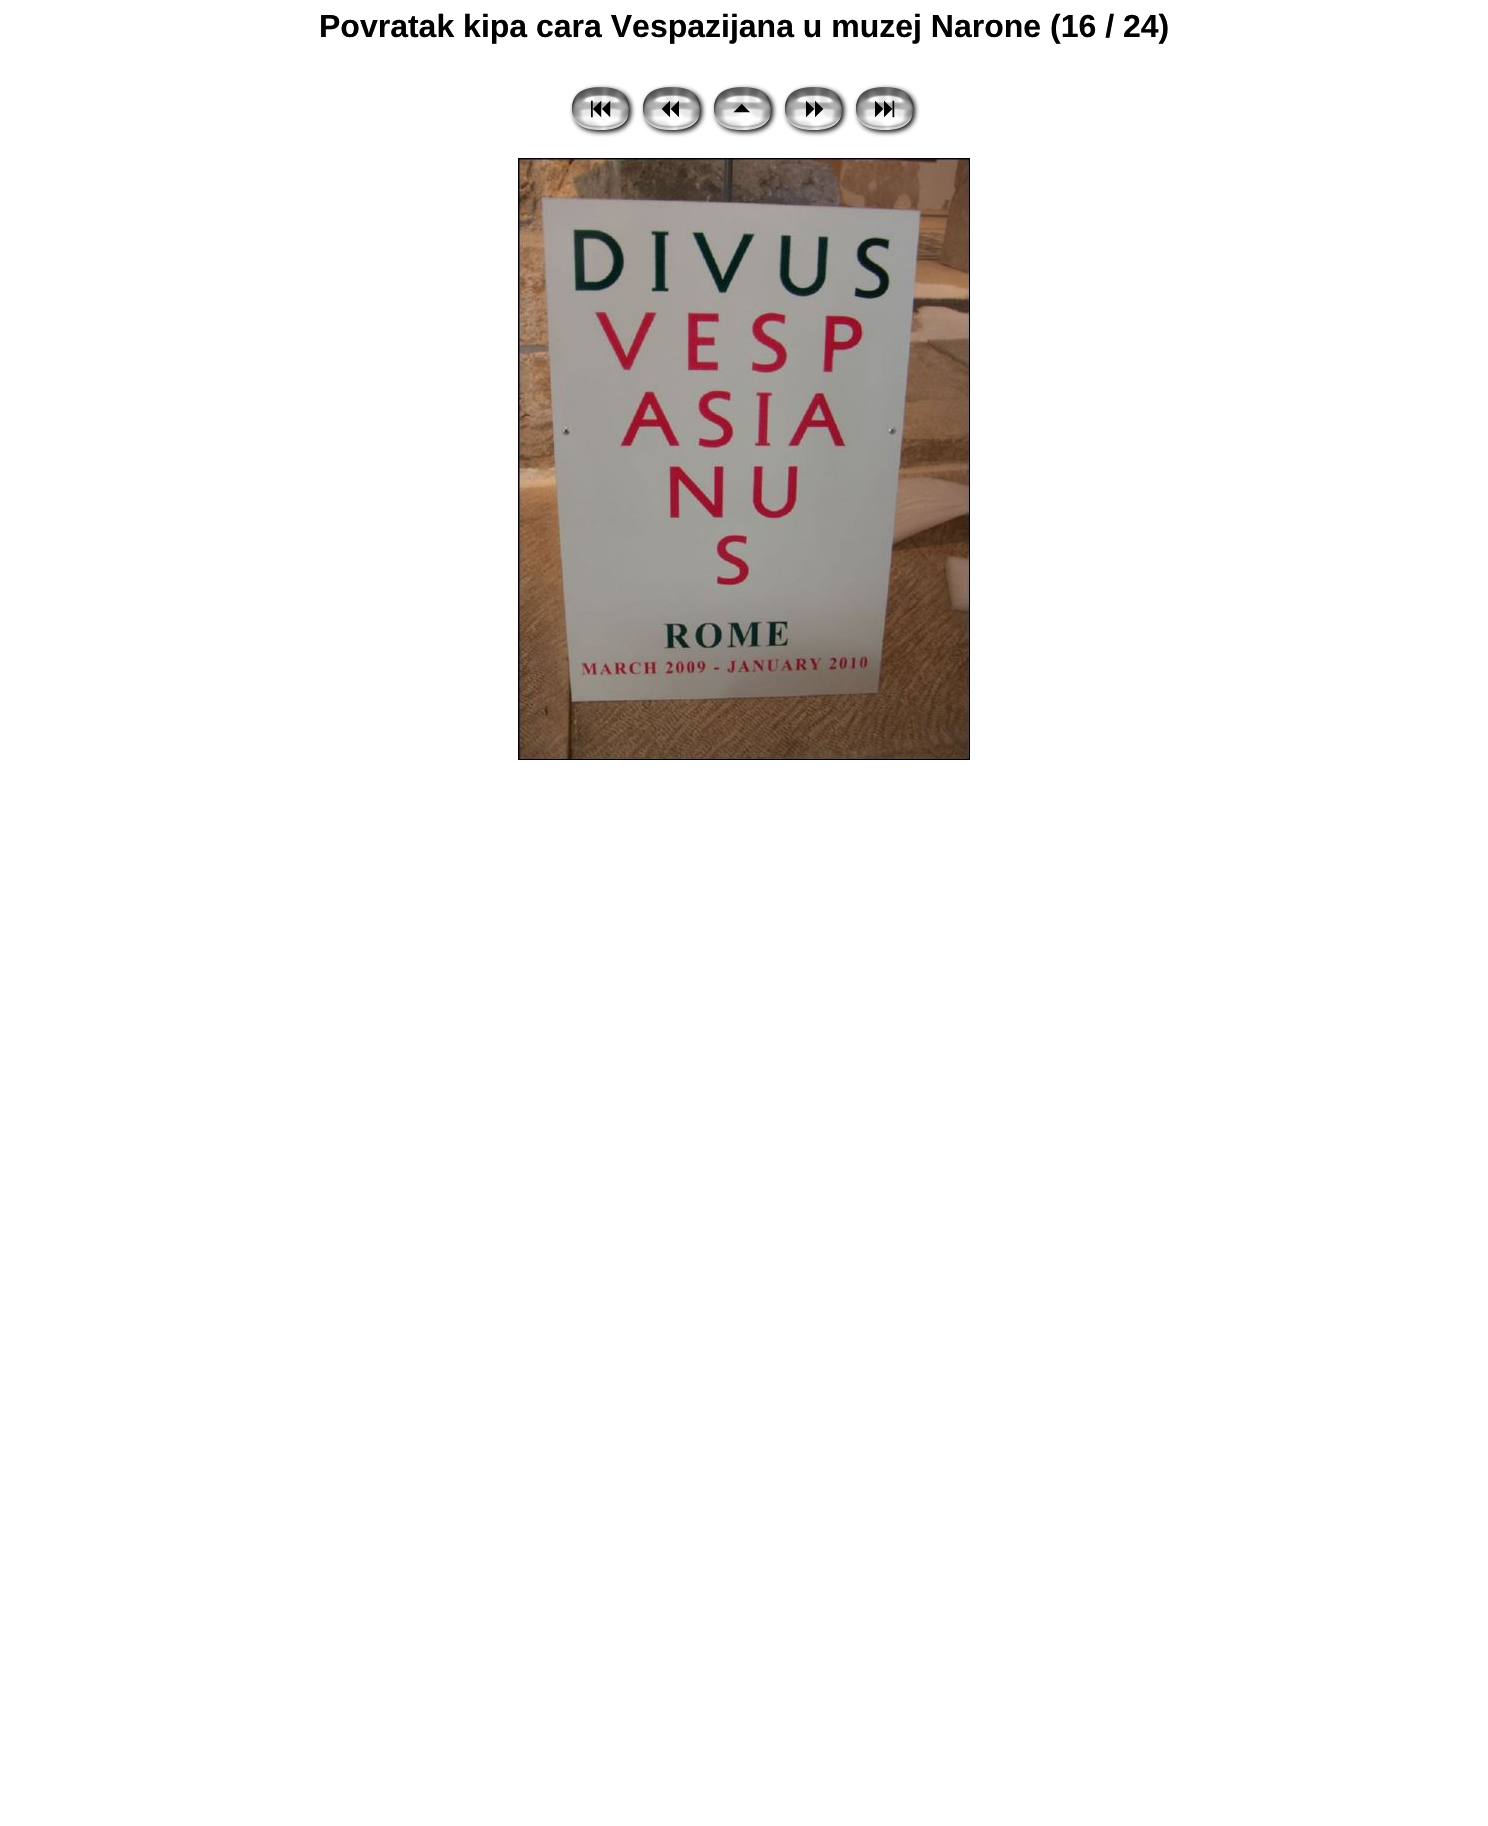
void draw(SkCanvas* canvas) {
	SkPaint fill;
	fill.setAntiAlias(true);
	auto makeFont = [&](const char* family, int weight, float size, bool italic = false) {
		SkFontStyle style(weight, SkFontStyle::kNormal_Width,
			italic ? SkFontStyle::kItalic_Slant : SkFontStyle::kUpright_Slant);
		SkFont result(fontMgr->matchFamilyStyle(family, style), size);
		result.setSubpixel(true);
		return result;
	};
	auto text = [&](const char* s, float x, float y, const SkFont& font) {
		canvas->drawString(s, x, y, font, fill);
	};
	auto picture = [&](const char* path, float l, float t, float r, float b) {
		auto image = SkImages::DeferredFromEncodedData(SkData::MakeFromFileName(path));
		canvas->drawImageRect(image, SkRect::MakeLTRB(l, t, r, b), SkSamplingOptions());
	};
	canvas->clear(0xFFFFFFFF);
	picture("image0.png", 569, 84, 636, 137);
	picture("image1.png", 640, 84, 707, 137);
	picture("image2.png", 711, 84, 778, 137);
	picture("image3.png", 782, 84, 849, 137);
	picture("image4.png", 853, 84, 920, 137);
	picture("image5.png", 518, 158, 970, 760);
	auto font1 = makeFont("Liberation Sans", 700, 32);
	fill.setColor(0xFF000000);
	text("Povratak kipa cara Vespazijana u muzej Narone (16 / 24)", 319, 37, font1);
}
